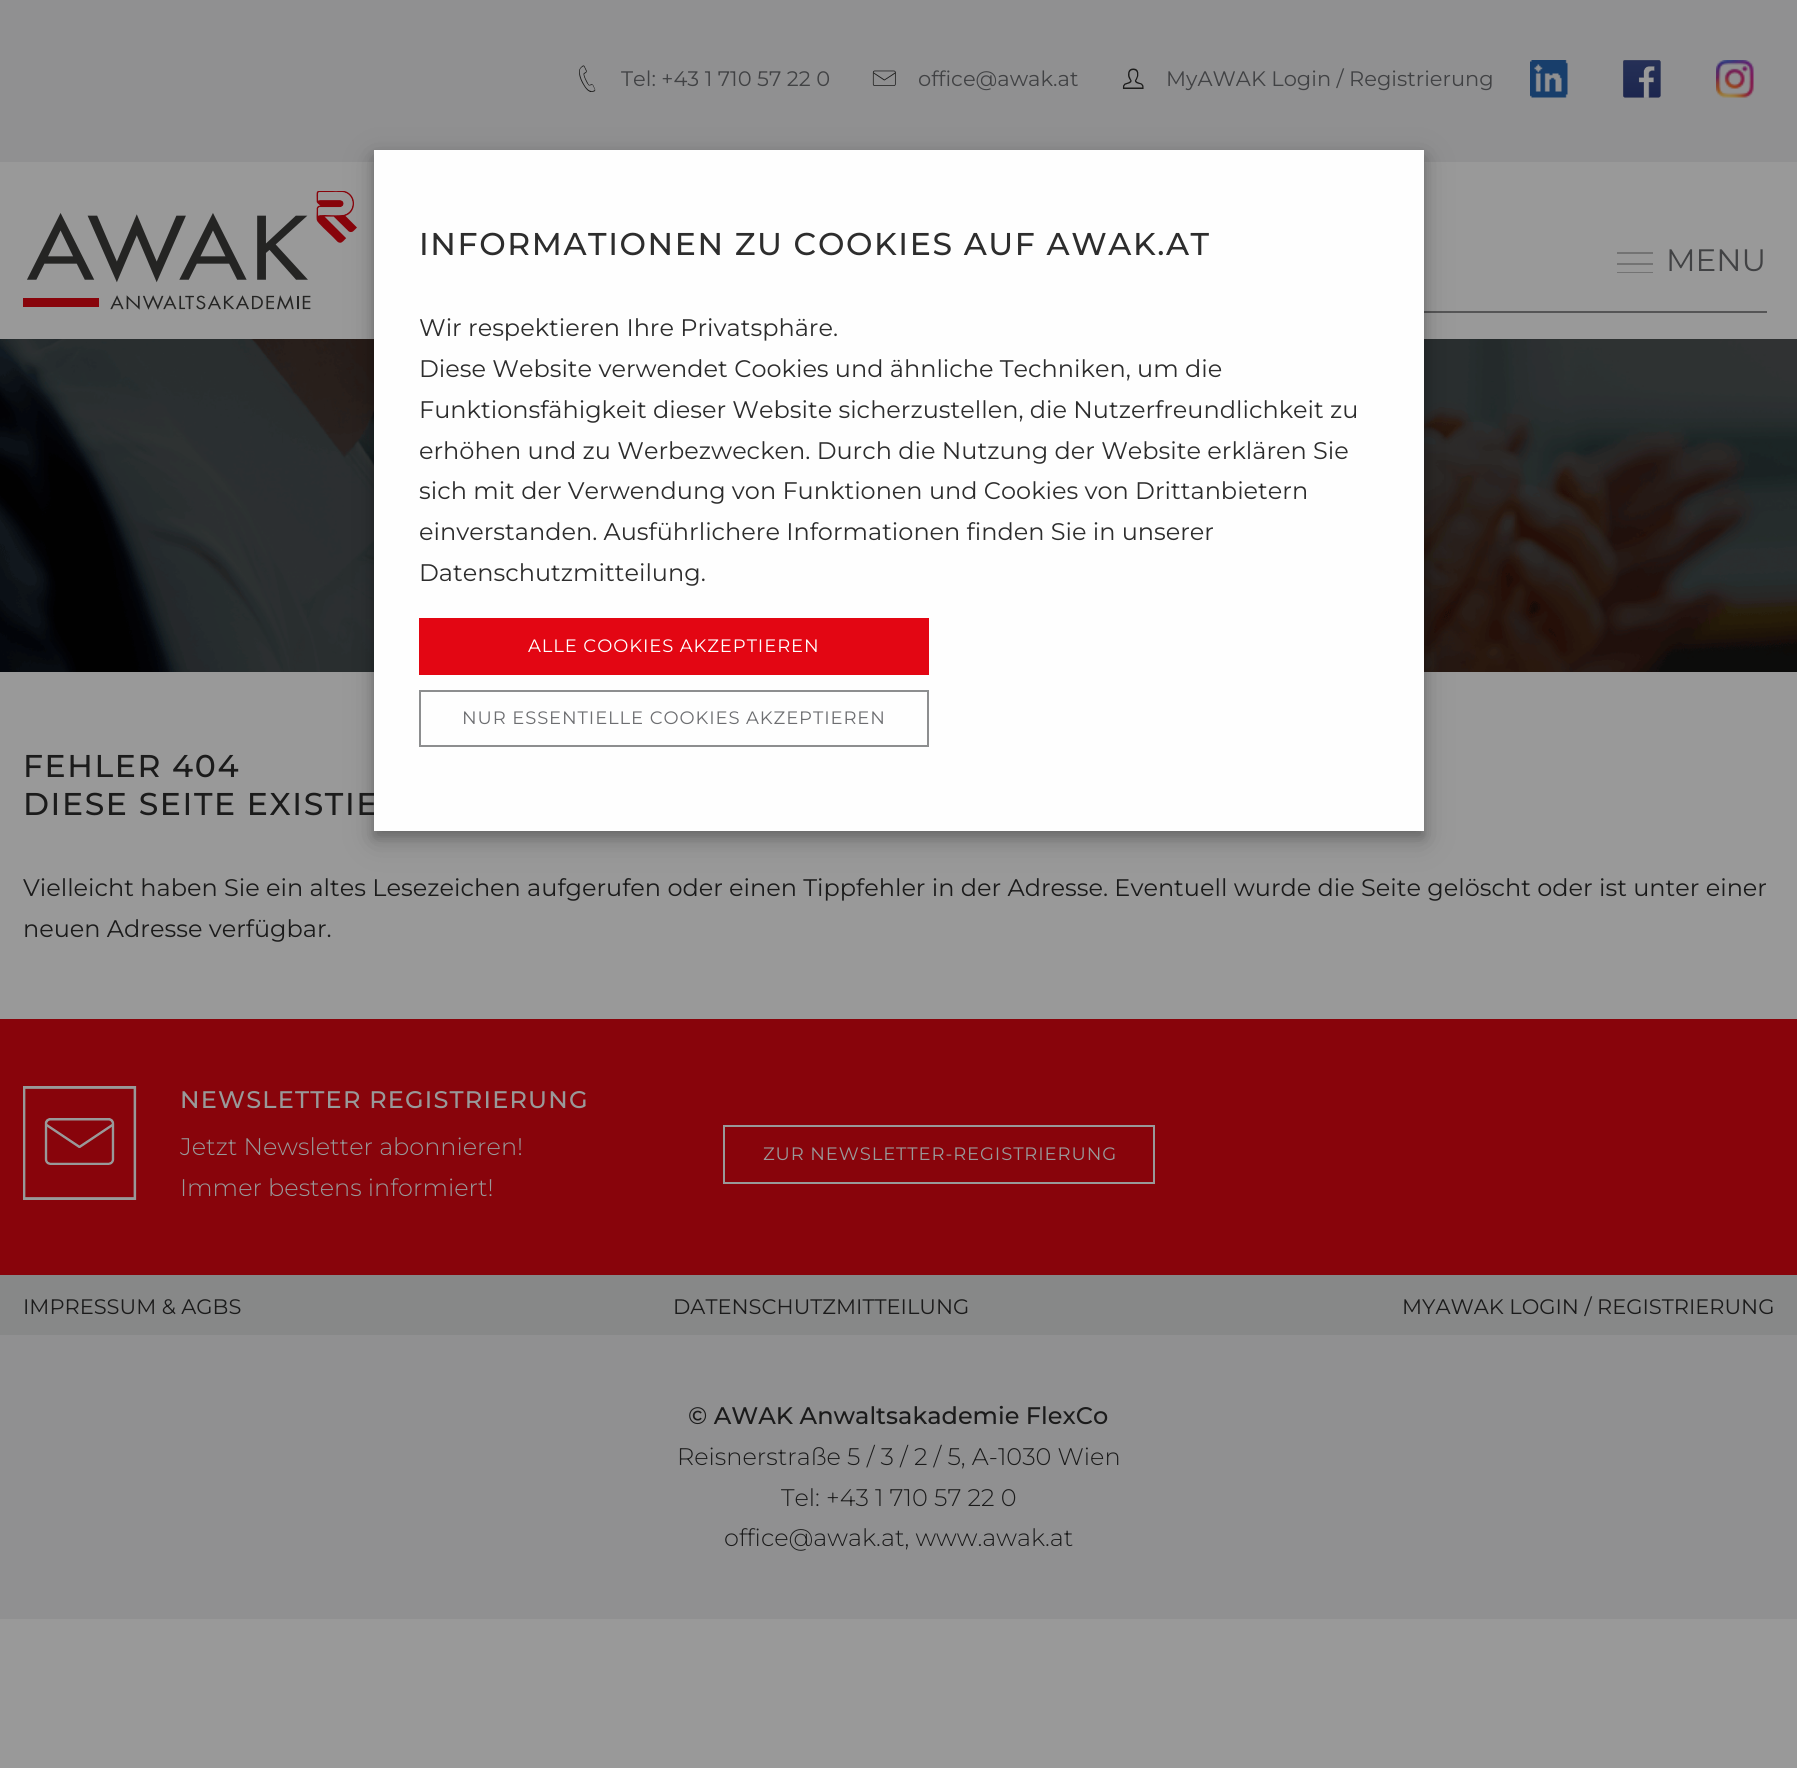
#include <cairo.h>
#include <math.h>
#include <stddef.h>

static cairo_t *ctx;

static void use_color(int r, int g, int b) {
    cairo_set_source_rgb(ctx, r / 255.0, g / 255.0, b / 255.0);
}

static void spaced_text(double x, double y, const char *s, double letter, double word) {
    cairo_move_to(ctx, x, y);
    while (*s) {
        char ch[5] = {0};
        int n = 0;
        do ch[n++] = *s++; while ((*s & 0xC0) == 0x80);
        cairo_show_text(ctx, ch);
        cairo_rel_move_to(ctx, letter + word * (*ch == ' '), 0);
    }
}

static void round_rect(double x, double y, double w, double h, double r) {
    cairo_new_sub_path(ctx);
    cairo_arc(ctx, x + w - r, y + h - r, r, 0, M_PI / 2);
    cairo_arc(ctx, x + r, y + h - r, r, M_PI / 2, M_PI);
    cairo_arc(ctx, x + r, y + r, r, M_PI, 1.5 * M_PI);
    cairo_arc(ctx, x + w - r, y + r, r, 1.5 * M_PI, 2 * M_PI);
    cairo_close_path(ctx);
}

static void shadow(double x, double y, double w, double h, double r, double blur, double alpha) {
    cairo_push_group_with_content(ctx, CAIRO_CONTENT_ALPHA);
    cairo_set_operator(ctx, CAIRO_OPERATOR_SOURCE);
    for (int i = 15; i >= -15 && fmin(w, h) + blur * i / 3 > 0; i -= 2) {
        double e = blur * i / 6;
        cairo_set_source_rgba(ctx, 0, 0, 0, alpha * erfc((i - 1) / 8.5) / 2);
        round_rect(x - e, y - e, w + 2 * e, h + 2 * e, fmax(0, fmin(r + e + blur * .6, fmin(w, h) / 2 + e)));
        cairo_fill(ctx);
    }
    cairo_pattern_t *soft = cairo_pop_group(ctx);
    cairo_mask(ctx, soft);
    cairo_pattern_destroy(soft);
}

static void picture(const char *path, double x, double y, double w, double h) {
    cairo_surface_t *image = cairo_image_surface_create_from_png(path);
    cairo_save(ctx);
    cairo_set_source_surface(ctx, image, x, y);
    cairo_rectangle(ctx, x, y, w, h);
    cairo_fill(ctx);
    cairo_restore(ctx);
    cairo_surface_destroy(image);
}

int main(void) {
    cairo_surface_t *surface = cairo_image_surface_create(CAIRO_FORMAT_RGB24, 1797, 1768);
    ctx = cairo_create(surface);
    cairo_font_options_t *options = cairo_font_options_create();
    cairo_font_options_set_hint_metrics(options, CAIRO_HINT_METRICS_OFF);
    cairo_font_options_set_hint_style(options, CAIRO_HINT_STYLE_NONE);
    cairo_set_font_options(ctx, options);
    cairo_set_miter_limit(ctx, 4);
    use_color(153, 153, 153);
    cairo_paint(ctx);
    use_color(144, 144, 145);
    cairo_rectangle(ctx, 0, 0, 1797, 162);
    cairo_fill(ctx);
    picture("img1.png", 579, 65, 17, 27);
    cairo_select_font_face(ctx, "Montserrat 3 Thin", CAIRO_FONT_SLANT_NORMAL, CAIRO_FONT_WEIGHT_NORMAL);
    cairo_set_font_size(ctx, 21);
    use_color(65, 66, 68);
    cairo_move_to(ctx, 621, 86);
    cairo_show_text(ctx, "Tel: +43 1 710 57 22 0");
    picture("img2.png", 872, 70, 24, 16);
    cairo_move_to(ctx, 918, 86);
    cairo_show_text(ctx, "office@awak.at");
    picture("img3.png", 1122, 68, 22, 21);
    cairo_move_to(ctx, 1166, 86);
    cairo_show_text(ctx, "MyAWAK Login / Registrierung");
    picture("img4.png", 1530, 60, 38, 38);
    picture("img5.png", 1623, 60, 38, 38);
    picture("img6.png", 1716, 60, 38, 38);
    picture("img7.png", 23, 191, 334, 119);
    use_color(85, 85, 86);
    cairo_rectangle(ctx, 1424, 311, 343, 2);
    cairo_fill(ctx);
    use_color(115, 115, 115);
    cairo_rectangle(ctx, 1617, 252, 36, 2);
    cairo_fill(ctx);
    cairo_rectangle(ctx, 1617, 263, 36, 2);
    cairo_fill(ctx);
    cairo_rectangle(ctx, 1617, 272, 36, 1);
    cairo_fill(ctx);
    cairo_set_font_size(ctx, 31);
    use_color(65, 66, 68);
    cairo_move_to(ctx, 1666, 271);
    cairo_show_text(ctx, "MENU");
    picture("img8.png", 0, 339, 1797, 333);
    use_color(0, 0, 0);
    shadow(374, 159, 1050, 681, 0, 15, 0.19);
    shadow(374, 156, 1050, 681, 0, 6, 0.2);
    cairo_select_font_face(ctx, "Montserrat Thin", CAIRO_FONT_SLANT_NORMAL, CAIRO_FONT_WEIGHT_NORMAL);
    cairo_set_font_size(ctx, 31.5);
    use_color(27, 27, 27);
    spaced_text(23, 815, "DIESE SEITE EXISTIE", 1.6, 0);
    use_color(254, 254, 254);
    cairo_rectangle(ctx, 374, 150, 1050, 681);
    cairo_fill(ctx);
    use_color(45, 45, 45);
    spaced_text(419, 255, "INFORMATIONEN ZU COOKIES AUF AWAK.AT", 1.6, 0);
    cairo_select_font_face(ctx, "Montserrat 3 Thin", CAIRO_FONT_SLANT_NORMAL, CAIRO_FONT_WEIGHT_NORMAL);
    cairo_set_font_size(ctx, 24);
    cairo_move_to(ctx, 419, 336);
    cairo_show_text(ctx, "Wir respektieren Ihre Privatsphäre.");
    cairo_move_to(ctx, 419, 377);
    cairo_show_text(ctx, "Diese Website verwendet Cookies und ähnliche Techniken, um die");
    cairo_move_to(ctx, 419, 418);
    cairo_show_text(ctx, "Funktionsfähigkeit dieser Website sicherzustellen, die Nutzerfreundlichkeit zu");
    cairo_move_to(ctx, 419, 459);
    cairo_show_text(ctx, "erhöhen und zu Werbezwecken. Durch die Nutzung der Website erklären Sie");
    cairo_move_to(ctx, 419, 499);
    cairo_show_text(ctx, "sich mit der Verwendung von Funktionen und Cookies von Drittanbietern");
    cairo_move_to(ctx, 419, 540);
    cairo_show_text(ctx, "einverstanden. Ausführlichere Informationen finden Sie in unserer");
    cairo_move_to(ctx, 419, 581);
    cairo_show_text(ctx, "Datenschutzmitteilung.");
    use_color(227, 6, 19);
    cairo_rectangle(ctx, 419, 618, 510, 57);
    cairo_fill(ctx);
    cairo_set_font_size(ctx, 18);
    use_color(255, 255, 255);
    spaced_text(528, 652, "ALLE COOKIES AKZEPTIEREN", 0.9, 0);
    cairo_rectangle(ctx, 420, 691, 508, 55);
    use_color(141, 142, 143);
    cairo_stroke(ctx);
    use_color(109, 110, 113);
    spaced_text(462, 724, "NUR ESSENTIELLE COOKIES AKZEPTIEREN", 0.9, 0);
    cairo_select_font_face(ctx, "Montserrat Thin", CAIRO_FONT_SLANT_NORMAL, CAIRO_FONT_WEIGHT_NORMAL);
    cairo_set_font_size(ctx, 31.5);
    use_color(27, 27, 27);
    spaced_text(23, 777, "FEHLER 404", 1.6, 0);
    cairo_select_font_face(ctx, "Montserrat 3 Thin", CAIRO_FONT_SLANT_NORMAL, CAIRO_FONT_WEIGHT_NORMAL);
    cairo_set_font_size(ctx, 24);
    cairo_move_to(ctx, 23, 896);
    cairo_show_text(ctx, "Vielleicht haben Sie ein altes Lesezeichen aufgerufen oder einen Tippfehler in der Adresse. Eventuell wurde die Seite gelöscht oder ist unter einer");
    cairo_move_to(ctx, 23, 937);
    cairo_show_text(ctx, "neuen Adresse verfügbar.");
    use_color(136, 4, 11);
    cairo_rectangle(ctx, 0, 1019, 1797, 256);
    cairo_fill(ctx);
    picture("img9.png", 23, 1086, 114, 114);
    cairo_select_font_face(ctx, "Montserrat Thin", CAIRO_FONT_SLANT_NORMAL, CAIRO_FONT_WEIGHT_NORMAL);
    use_color(153, 153, 153);
    spaced_text(180, 1108, "NEWSLETTER REGISTRIERUNG", 1.2, 0);
    cairo_select_font_face(ctx, "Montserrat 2 Thin", CAIRO_FONT_SLANT_NORMAL, CAIRO_FONT_WEIGHT_NORMAL);
    cairo_move_to(ctx, 180, 1155);
    cairo_show_text(ctx, "Jetzt Newsletter abonnieren!");
    cairo_move_to(ctx, 180, 1196);
    cairo_show_text(ctx, "Immer bestens informiert!");
    cairo_rectangle(ctx, 724, 1126, 430, 57);
    cairo_stroke(ctx);
    cairo_select_font_face(ctx, "Montserrat 3 Thin", CAIRO_FONT_SLANT_NORMAL, CAIRO_FONT_WEIGHT_NORMAL);
    cairo_set_font_size(ctx, 18);
    spaced_text(763, 1160, "ZUR NEWSLETTER-REGISTRIERUNG", 0.9, 0);
    use_color(135, 136, 136);
    cairo_rectangle(ctx, 0, 1275, 1797, 60);
    cairo_fill(ctx);
    cairo_set_font_size(ctx, 21);
    use_color(27, 27, 27);
    cairo_move_to(ctx, 23, 1314);
    cairo_show_text(ctx, "IMPRESSUM & AGBS");
    cairo_move_to(ctx, 673, 1314);
    cairo_show_text(ctx, "DATENSCHUTZMITTEILUNG");
    cairo_move_to(ctx, 1402, 1314);
    cairo_show_text(ctx, "MYAWAK LOGIN / REGISTRIERUNG");
    use_color(144, 144, 145);
    cairo_rectangle(ctx, 0, 1335, 1797, 284);
    cairo_fill(ctx);
    cairo_select_font_face(ctx, "Montserrat Thin", CAIRO_FONT_SLANT_NORMAL, CAIRO_FONT_WEIGHT_NORMAL);
    cairo_set_font_size(ctx, 24);
    use_color(27, 27, 27);
    cairo_move_to(ctx, 688, 1424);
    cairo_show_text(ctx, "© AWAK Anwaltsakademie FlexCo");
    cairo_select_font_face(ctx, "Montserrat 2 Thin", CAIRO_FONT_SLANT_NORMAL, CAIRO_FONT_WEIGHT_NORMAL);
    cairo_move_to(ctx, 677, 1465);
    cairo_show_text(ctx, "Reisnerstraße 5 / 3 / 2 / 5, A-1030 Wien");
    cairo_move_to(ctx, 781, 1506);
    cairo_show_text(ctx, "Tel: +43 1 710 57 22 0");
    cairo_move_to(ctx, 724, 1546);
    cairo_show_text(ctx, "office@awak.at, www.awak.at");
    cairo_surface_write_to_png(surface, "result.png");
    cairo_font_options_destroy(options);
    cairo_destroy(ctx);
    cairo_surface_destroy(surface);
    return 0;
}
